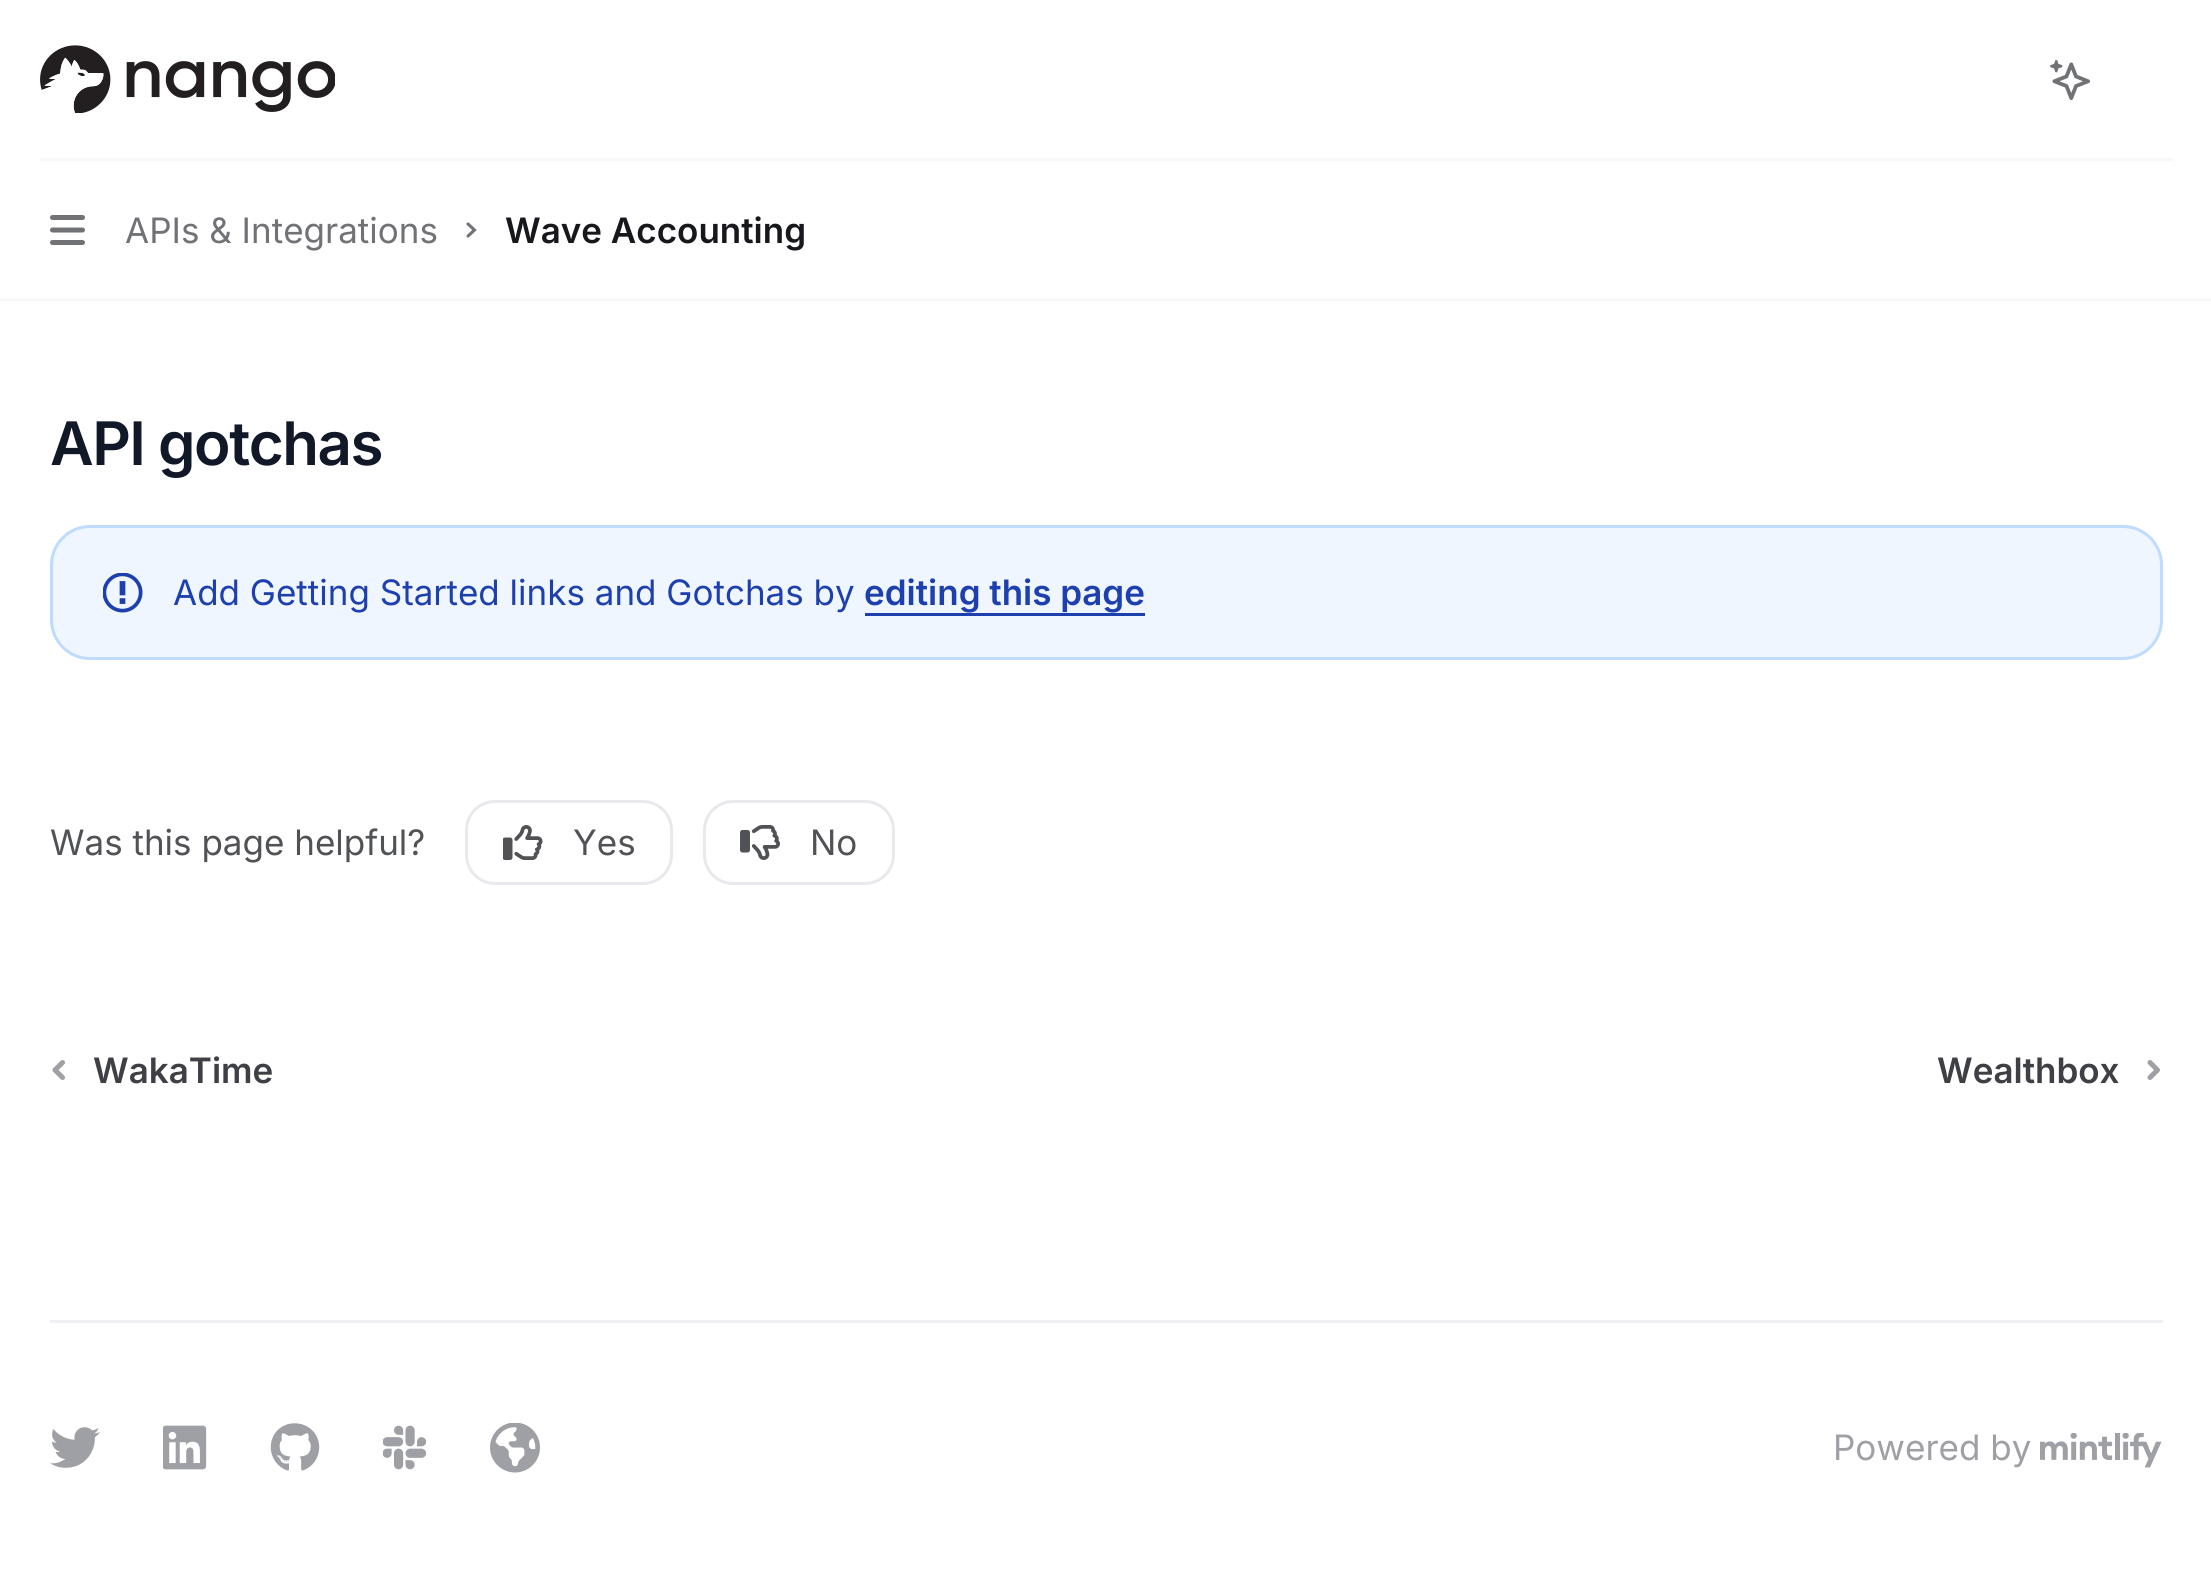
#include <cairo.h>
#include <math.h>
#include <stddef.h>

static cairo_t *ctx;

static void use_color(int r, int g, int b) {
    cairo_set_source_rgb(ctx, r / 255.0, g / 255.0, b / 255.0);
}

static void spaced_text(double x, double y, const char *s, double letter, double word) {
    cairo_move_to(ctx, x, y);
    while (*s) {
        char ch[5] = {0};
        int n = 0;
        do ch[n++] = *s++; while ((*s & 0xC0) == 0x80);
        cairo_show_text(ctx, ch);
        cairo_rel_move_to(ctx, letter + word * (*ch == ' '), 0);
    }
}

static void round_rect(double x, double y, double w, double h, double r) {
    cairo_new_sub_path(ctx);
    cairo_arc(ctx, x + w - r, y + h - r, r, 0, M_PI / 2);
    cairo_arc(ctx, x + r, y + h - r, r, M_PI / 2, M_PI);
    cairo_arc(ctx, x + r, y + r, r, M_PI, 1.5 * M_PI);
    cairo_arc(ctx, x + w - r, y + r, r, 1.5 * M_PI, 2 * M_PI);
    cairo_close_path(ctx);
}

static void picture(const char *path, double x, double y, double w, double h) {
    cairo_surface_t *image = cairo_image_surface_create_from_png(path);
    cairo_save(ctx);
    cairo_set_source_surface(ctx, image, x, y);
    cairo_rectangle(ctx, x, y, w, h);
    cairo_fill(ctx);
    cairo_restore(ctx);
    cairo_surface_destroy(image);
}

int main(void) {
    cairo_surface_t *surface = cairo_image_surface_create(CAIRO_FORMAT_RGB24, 2211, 1594);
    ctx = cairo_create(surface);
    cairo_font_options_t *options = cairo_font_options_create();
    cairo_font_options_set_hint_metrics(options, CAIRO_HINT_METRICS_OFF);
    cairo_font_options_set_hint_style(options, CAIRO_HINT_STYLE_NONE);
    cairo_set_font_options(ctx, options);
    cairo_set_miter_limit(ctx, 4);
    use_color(255, 255, 255);
    cairo_paint(ctx);
    use_color(248, 248, 248);
    cairo_rectangle(ctx, 40, 158, 2133, 3);
    cairo_fill(ctx);
    picture("img1.png", 40, 45, 295, 68);
    picture("img2.png", 2050, 60, 40, 40);
    picture("img3.png", 50, 215, 35, 30);
    cairo_select_font_face(ctx, "Inter", CAIRO_FONT_SLANT_NORMAL, CAIRO_FONT_WEIGHT_NORMAL);
    cairo_set_font_size(ctx, 35);
    use_color(112, 114, 118);
    cairo_move_to(ctx, 125, 243);
    cairo_show_text(ctx, "APIs & Integrations");
    cairo_new_path(ctx);
    cairo_move_to(ctx, 468, 224);
    cairo_line_to(ctx, 474.5, 230);
    cairo_line_to(ctx, 468, 236);
    cairo_set_line_width(ctx, 3.1);
    cairo_set_line_cap(ctx, CAIRO_LINE_CAP_ROUND);
    cairo_stroke(ctx);
    cairo_select_font_face(ctx, "Inter SemiBold", CAIRO_FONT_SLANT_NORMAL, CAIRO_FONT_WEIGHT_NORMAL);
    use_color(23, 24, 29);
    cairo_move_to(ctx, 505, 243);
    cairo_show_text(ctx, "Wave Accounting");
    use_color(248, 248, 248);
    cairo_rectangle(ctx, 0, 298, 2211, 3);
    cairo_fill(ctx);
    cairo_set_font_size(ctx, 60);
    use_color(17, 24, 39);
    spaced_text(50, 465, "API gotchas", -1.5, 0);
    use_color(239, 246, 255);
    round_rect(51.5, 526.5, 2110, 132, 38.5);
    cairo_fill_preserve(ctx);
    use_color(191, 219, 254);
    cairo_set_line_width(ctx, 3);
    cairo_set_line_cap(ctx, CAIRO_LINE_CAP_BUTT);
    cairo_stroke(ctx);
    picture("img4.png", 103, 573, 40, 40);
    cairo_select_font_face(ctx, "Inter", CAIRO_FONT_SLANT_NORMAL, CAIRO_FONT_WEIGHT_NORMAL);
    cairo_set_font_size(ctx, 35);
    use_color(30, 64, 175);
    cairo_move_to(ctx, 173, 605);
    cairo_show_text(ctx, "Add Getting Started links and Gotchas by");
    cairo_select_font_face(ctx, "Inter SemiBold", CAIRO_FONT_SLANT_NORMAL, CAIRO_FONT_WEIGHT_NORMAL);
    cairo_move_to(ctx, 864, 605);
    cairo_show_text(ctx, "editing this page");
    cairo_rectangle(ctx, 865, 613, 280, 3);
    cairo_fill(ctx);
    cairo_select_font_face(ctx, "Inter", CAIRO_FONT_SLANT_NORMAL, CAIRO_FONT_WEIGHT_NORMAL);
    use_color(80, 82, 86);
    cairo_move_to(ctx, 50, 855);
    cairo_show_text(ctx, "Was this page helpful?");
    round_rect(466.5, 801.5, 205, 82, 28.5);
    use_color(233, 233, 237);
    cairo_stroke(ctx);
    picture("img5.png", 503, 825, 40, 35);
    use_color(80, 82, 86);
    cairo_move_to(ctx, 573, 855);
    cairo_show_text(ctx, "Yes");
    round_rect(704.5, 801.5, 189, 82, 28.5);
    use_color(233, 233, 237);
    cairo_stroke(ctx);
    picture("img6.png", 740, 825, 40, 35);
    use_color(80, 82, 86);
    cairo_move_to(ctx, 810, 855);
    cairo_show_text(ctx, "No");
    cairo_new_path(ctx);
    cairo_move_to(ctx, 62.5, 1062.5);
    cairo_line_to(ctx, 55, 1070);
    cairo_line_to(ctx, 62.5, 1077.5);
    use_color(159, 160, 165);
    cairo_set_line_width(ctx, 5);
    cairo_set_line_cap(ctx, CAIRO_LINE_CAP_ROUND);
    cairo_set_line_join(ctx, CAIRO_LINE_JOIN_ROUND);
    cairo_stroke(ctx);
    cairo_select_font_face(ctx, "Inter SemiBold", CAIRO_FONT_SLANT_NORMAL, CAIRO_FONT_WEIGHT_NORMAL);
    use_color(63, 64, 69);
    cairo_move_to(ctx, 93, 1083);
    cairo_show_text(ctx, "WakaTime");
    cairo_move_to(ctx, 1937, 1083);
    cairo_show_text(ctx, "Wealthbox");
    cairo_new_path(ctx);
    cairo_move_to(ctx, 2150, 1077.5);
    cairo_line_to(ctx, 2157.5, 1070);
    cairo_line_to(ctx, 2150, 1062.5);
    use_color(159, 160, 165);
    cairo_stroke(ctx);
    use_color(238, 240, 244);
    cairo_rectangle(ctx, 50, 1320, 2113, 3);
    cairo_fill(ctx);
    picture("img7.png", 50, 1427, 50, 41);
    picture("img8.png", 163, 1425, 44, 45);
    picture("img9.png", 270, 1423, 50, 48);
    picture("img10.png", 383, 1425, 44, 45);
    picture("img11.png", 490, 1423, 50, 50);
    cairo_select_font_face(ctx, "Inter", CAIRO_FONT_SLANT_NORMAL, CAIRO_FONT_WEIGHT_NORMAL);
    use_color(159, 160, 165);
    cairo_move_to(ctx, 1833, 1460);
    cairo_show_text(ctx, "Powered by");
    picture("img12.png", 2040, 1433, 122, 35);
    cairo_surface_write_to_png(surface, "result.png");
    cairo_font_options_destroy(options);
    cairo_destroy(ctx);
    cairo_surface_destroy(surface);
    return 0;
}
